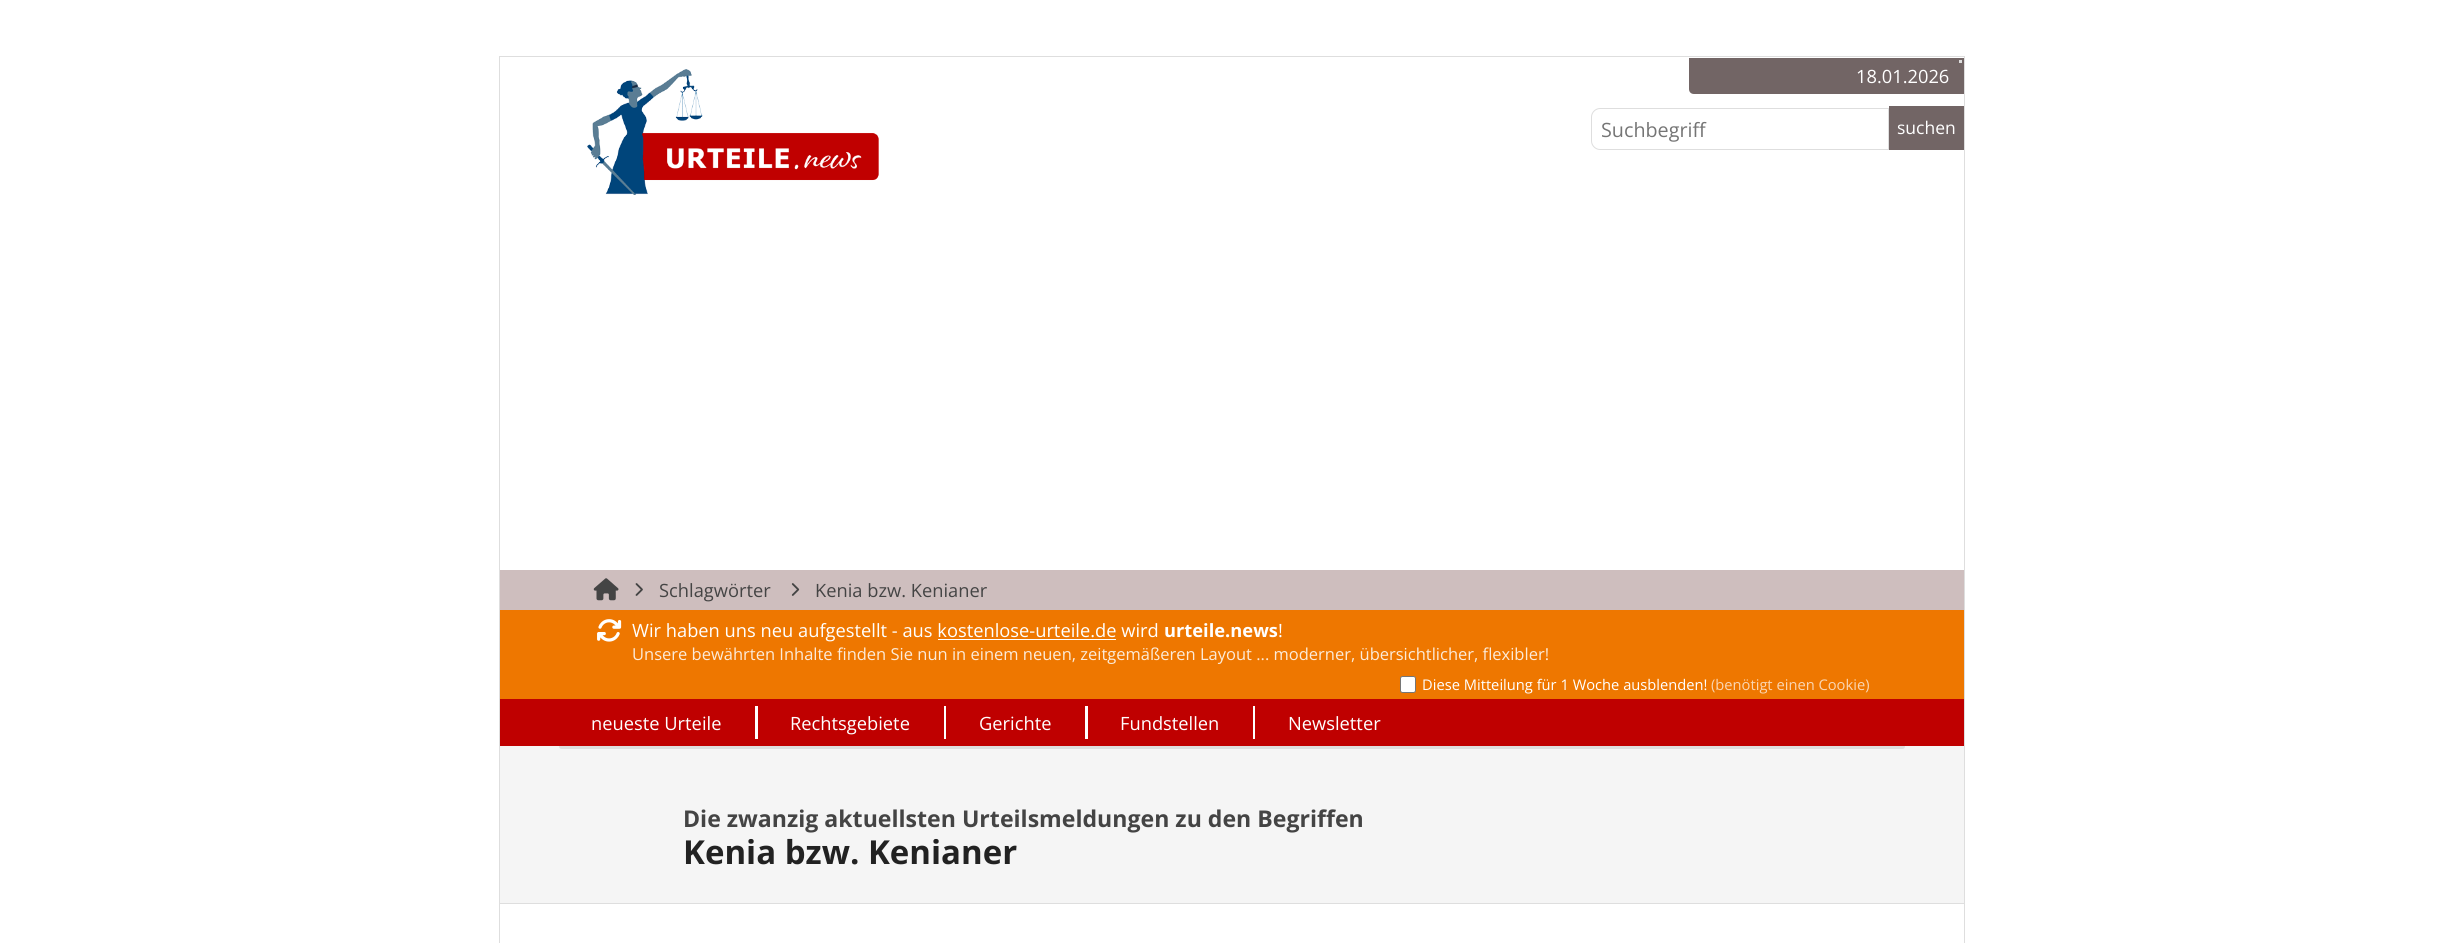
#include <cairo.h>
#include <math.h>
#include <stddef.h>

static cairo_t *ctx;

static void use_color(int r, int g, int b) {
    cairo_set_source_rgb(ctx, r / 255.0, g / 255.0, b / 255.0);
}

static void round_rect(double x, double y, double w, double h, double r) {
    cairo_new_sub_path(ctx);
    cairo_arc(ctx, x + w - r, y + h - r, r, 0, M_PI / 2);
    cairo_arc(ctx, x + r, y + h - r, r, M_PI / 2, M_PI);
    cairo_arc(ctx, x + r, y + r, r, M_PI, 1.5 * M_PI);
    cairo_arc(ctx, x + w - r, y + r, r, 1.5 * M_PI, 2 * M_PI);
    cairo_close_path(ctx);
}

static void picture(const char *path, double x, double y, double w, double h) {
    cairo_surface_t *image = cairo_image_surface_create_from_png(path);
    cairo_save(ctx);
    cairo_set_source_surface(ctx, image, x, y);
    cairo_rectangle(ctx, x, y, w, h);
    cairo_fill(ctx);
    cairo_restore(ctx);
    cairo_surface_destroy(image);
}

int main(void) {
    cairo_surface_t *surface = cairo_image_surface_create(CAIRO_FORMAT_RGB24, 2463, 943);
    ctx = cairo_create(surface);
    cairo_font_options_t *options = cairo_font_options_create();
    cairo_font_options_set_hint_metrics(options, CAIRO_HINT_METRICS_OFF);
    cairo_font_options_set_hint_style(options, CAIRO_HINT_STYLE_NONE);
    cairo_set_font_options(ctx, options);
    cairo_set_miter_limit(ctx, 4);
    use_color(255, 255, 255);
    cairo_paint(ctx);
    cairo_rectangle(ctx, 499.5, 56.5, 1465, 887);
    use_color(222, 222, 222);
    cairo_set_line_width(ctx, 1);
    cairo_stroke(ctx);
    use_color(114, 101, 101);
    cairo_new_path(ctx);
    cairo_move_to(ctx, 1689, 58);
    cairo_line_to(ctx, 1964, 58);
    cairo_line_to(ctx, 1964, 94);
    cairo_line_to(ctx, 1694, 94);
    cairo_curve_to(ctx, 1691, 94, 1689, 92, 1689, 89);
    cairo_close_path(ctx);
    cairo_fill(ctx);
    use_color(222, 222, 222);
    cairo_rectangle(ctx, 1959, 60, 3, 3);
    cairo_fill(ctx);
    cairo_select_font_face(ctx, "Open Sans", CAIRO_FONT_SLANT_NORMAL, CAIRO_FONT_WEIGHT_NORMAL);
    cairo_set_font_size(ctx, 18.3);
    use_color(255, 255, 255);
    cairo_move_to(ctx, 1856, 83);
    cairo_show_text(ctx, "18.01.2026");
    picture("img1.png", 587, 69, 292, 126);
    cairo_new_path(ctx);
    cairo_move_to(ctx, 1600, 108.5);
    cairo_line_to(ctx, 1888.5, 108.5);
    cairo_line_to(ctx, 1888.5, 149.5);
    cairo_line_to(ctx, 1600, 149.5);
    cairo_curve_to(ctx, 1595.5, 149.5, 1591.5, 145.5, 1591.5, 141);
    cairo_line_to(ctx, 1591.5, 117);
    cairo_curve_to(ctx, 1591.5, 112.5, 1595.5, 108.5, 1600, 108.5);
    cairo_close_path(ctx);
    use_color(222, 222, 222);
    cairo_stroke(ctx);
    cairo_set_font_size(ctx, 19.75);
    use_color(117, 117, 117);
    cairo_move_to(ctx, 1601, 137);
    cairo_show_text(ctx, "Suchbegriff");
    use_color(114, 101, 101);
    cairo_rectangle(ctx, 1889, 106, 75, 44);
    cairo_fill(ctx);
    cairo_set_font_size(ctx, 17.5);
    use_color(255, 255, 255);
    cairo_move_to(ctx, 1897, 134);
    cairo_show_text(ctx, "suchen");
    use_color(206, 190, 190);
    cairo_rectangle(ctx, 500, 570, 1464, 40);
    cairo_fill(ctx);
    picture("img2.png", 593, 578, 26, 23);
    picture("img3.png", 635, 583, 8, 13);
    cairo_set_font_size(ctx, 18.3);
    use_color(68, 68, 68);
    cairo_move_to(ctx, 659, 597);
    cairo_show_text(ctx, "Schlagwörter");
    picture("img4.png", 791, 583, 9, 13);
    cairo_move_to(ctx, 815, 597);
    cairo_show_text(ctx, "Kenia bzw. Kenianer");
    use_color(238, 119, 0);
    cairo_rectangle(ctx, 500, 610, 1464, 89);
    cairo_fill(ctx);
    picture("img5.png", 597, 619, 25, 23);
    use_color(255, 255, 255);
    cairo_move_to(ctx, 632, 637);
    cairo_show_text(ctx, "Wir haben uns neu aufgestellt - aus kostenlose-urteile.de wird");
    cairo_select_font_face(ctx, "Open Sans", CAIRO_FONT_SLANT_NORMAL, CAIRO_FONT_WEIGHT_BOLD);
    cairo_move_to(ctx, 1164, 637);
    cairo_show_text(ctx, "urteile.news");
    cairo_select_font_face(ctx, "Open Sans", CAIRO_FONT_SLANT_NORMAL, CAIRO_FONT_WEIGHT_NORMAL);
    cairo_move_to(ctx, 1278, 637);
    cairo_show_text(ctx, "!");
    cairo_rectangle(ctx, 938, 639, 178, 1);
    cairo_fill(ctx);
    cairo_set_font_size(ctx, 16.5);
    use_color(252, 235, 217);
    cairo_move_to(ctx, 632, 660);
    cairo_show_text(ctx, "Unsere bewährten Inhalte finden Sie nun in einem neuen, zeitgemäßeren Layout ... moderner, übersichtlicher, flexibler!");
    use_color(255, 255, 255);
    round_rect(1400.5, 676.5, 15, 16, 2);
    cairo_fill_preserve(ctx);
    use_color(118, 118, 118);
    cairo_stroke(ctx);
    cairo_set_font_size(ctx, 14.7);
    use_color(255, 255, 255);
    cairo_move_to(ctx, 1422, 690);
    cairo_show_text(ctx, "Diese Mitteilung für 1 Woche ausblenden!");
    use_color(250, 214, 179);
    cairo_move_to(ctx, 1711, 690);
    cairo_show_text(ctx, "(benötigt einen Cookie)");
    use_color(191, 0, 0);
    cairo_rectangle(ctx, 500, 699, 1464, 47);
    cairo_fill(ctx);
    use_color(255, 255, 255);
    cairo_rectangle(ctx, 755, 706, 3, 33);
    cairo_fill(ctx);
    cairo_set_font_size(ctx, 18.3);
    cairo_move_to(ctx, 591, 730);
    cairo_show_text(ctx, "neueste Urteile");
    cairo_rectangle(ctx, 944, 706, 2, 33);
    cairo_fill(ctx);
    cairo_move_to(ctx, 790, 730);
    cairo_show_text(ctx, "Rechtsgebiete");
    cairo_rectangle(ctx, 1085, 706, 3, 33);
    cairo_fill(ctx);
    cairo_move_to(ctx, 979, 730);
    cairo_show_text(ctx, "Gerichte");
    cairo_rectangle(ctx, 1253, 706, 2, 33);
    cairo_fill(ctx);
    cairo_move_to(ctx, 1120, 730);
    cairo_show_text(ctx, "Fundstellen");
    cairo_move_to(ctx, 1288, 730);
    cairo_show_text(ctx, "Newsletter");
    use_color(245, 245, 245);
    cairo_rectangle(ctx, 500, 746, 1464, 157);
    cairo_fill(ctx);
    use_color(222, 222, 222);
    cairo_new_path(ctx);
    cairo_move_to(ctx, 559, 746);
    cairo_line_to(ctx, 1905, 746);
    cairo_line_to(ctx, 1905, 746.5);
    cairo_curve_to(ctx, 1905, 748, 1904, 749, 1902.5, 749);
    cairo_line_to(ctx, 561.5, 749);
    cairo_curve_to(ctx, 560, 749, 559, 748, 559, 746.5);
    cairo_close_path(ctx);
    cairo_fill(ctx);
    cairo_rectangle(ctx, 500, 903, 1464, 1);
    cairo_fill(ctx);
    cairo_select_font_face(ctx, "Open Sans", CAIRO_FONT_SLANT_NORMAL, CAIRO_FONT_WEIGHT_BOLD);
    cairo_set_font_size(ctx, 23.1);
    use_color(68, 68, 68);
    cairo_move_to(ctx, 683, 827);
    cairo_show_text(ctx, "Die zwanzig aktuellsten Urteilsmeldungen zu den Begriffen");
    cairo_set_font_size(ctx, 33);
    use_color(34, 34, 34);
    cairo_move_to(ctx, 683, 864);
    cairo_show_text(ctx, "Kenia bzw. Kenianer");
    cairo_surface_write_to_png(surface, "result.png");
    cairo_font_options_destroy(options);
    cairo_destroy(ctx);
    cairo_surface_destroy(surface);
    return 0;
}
